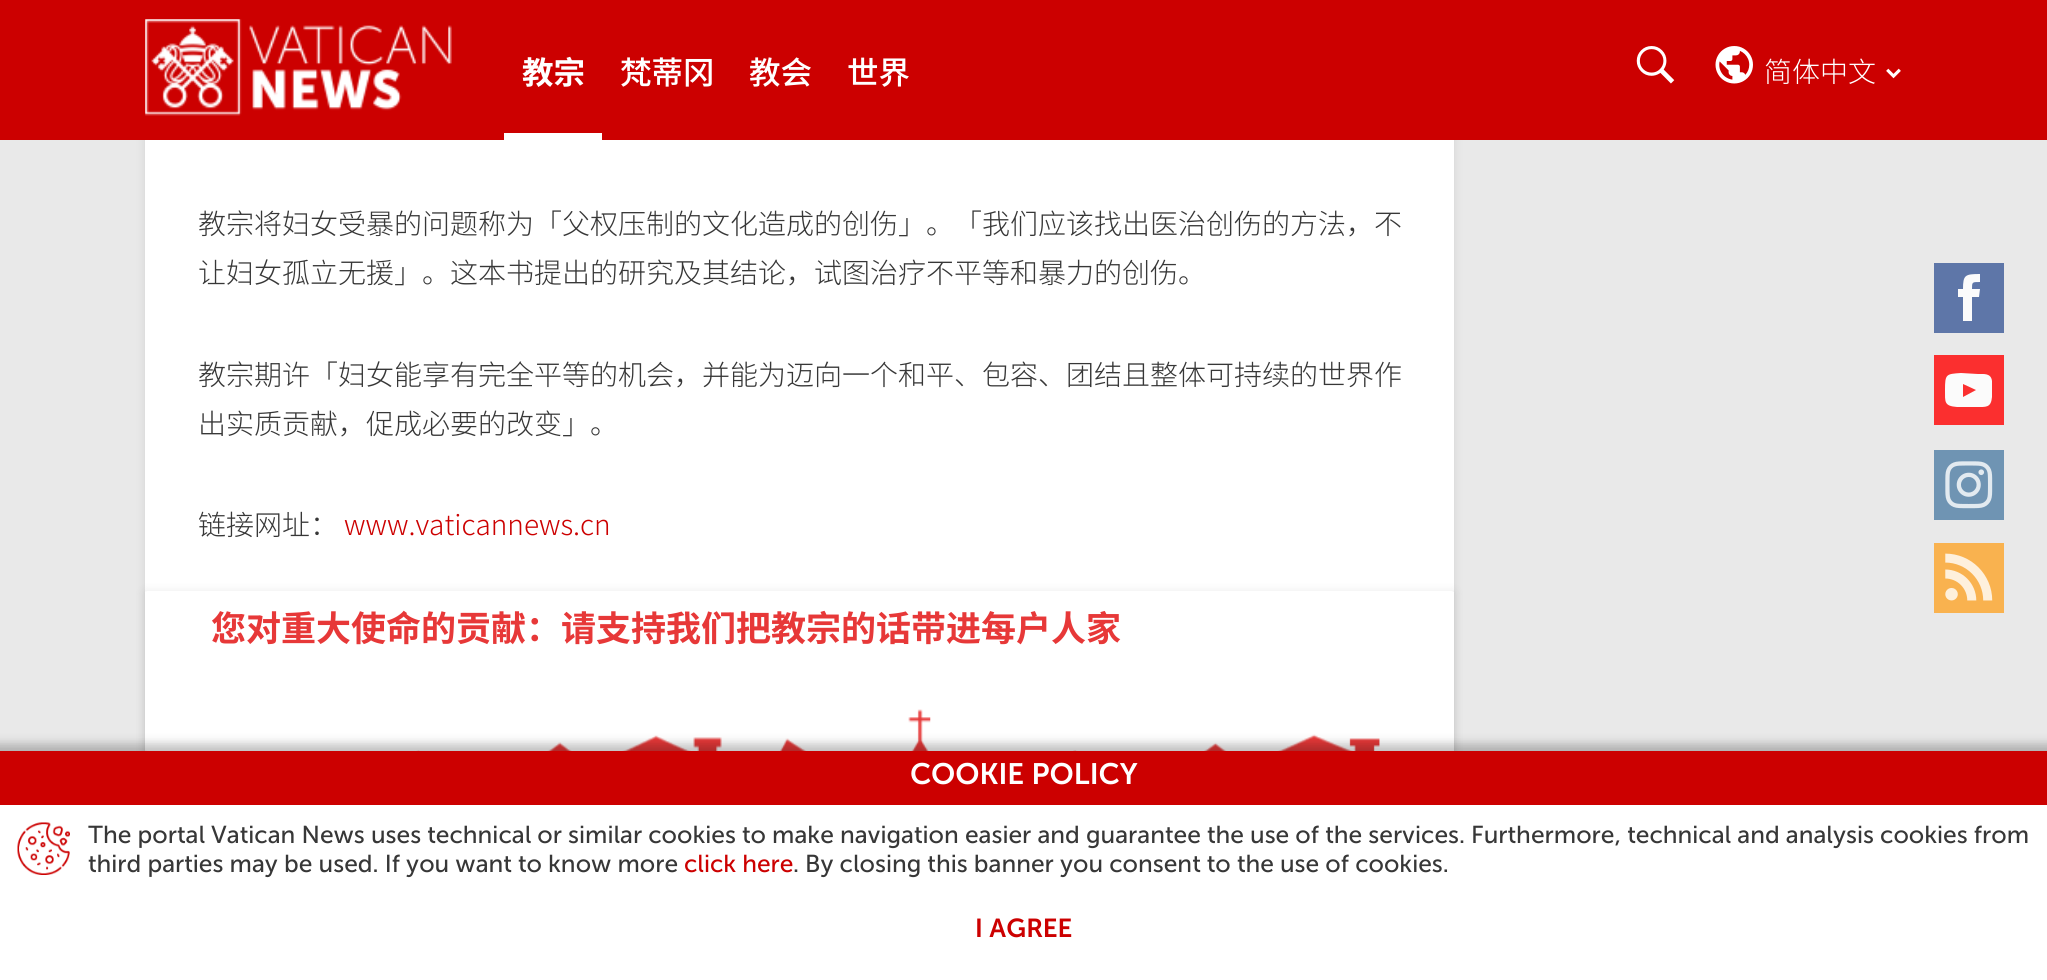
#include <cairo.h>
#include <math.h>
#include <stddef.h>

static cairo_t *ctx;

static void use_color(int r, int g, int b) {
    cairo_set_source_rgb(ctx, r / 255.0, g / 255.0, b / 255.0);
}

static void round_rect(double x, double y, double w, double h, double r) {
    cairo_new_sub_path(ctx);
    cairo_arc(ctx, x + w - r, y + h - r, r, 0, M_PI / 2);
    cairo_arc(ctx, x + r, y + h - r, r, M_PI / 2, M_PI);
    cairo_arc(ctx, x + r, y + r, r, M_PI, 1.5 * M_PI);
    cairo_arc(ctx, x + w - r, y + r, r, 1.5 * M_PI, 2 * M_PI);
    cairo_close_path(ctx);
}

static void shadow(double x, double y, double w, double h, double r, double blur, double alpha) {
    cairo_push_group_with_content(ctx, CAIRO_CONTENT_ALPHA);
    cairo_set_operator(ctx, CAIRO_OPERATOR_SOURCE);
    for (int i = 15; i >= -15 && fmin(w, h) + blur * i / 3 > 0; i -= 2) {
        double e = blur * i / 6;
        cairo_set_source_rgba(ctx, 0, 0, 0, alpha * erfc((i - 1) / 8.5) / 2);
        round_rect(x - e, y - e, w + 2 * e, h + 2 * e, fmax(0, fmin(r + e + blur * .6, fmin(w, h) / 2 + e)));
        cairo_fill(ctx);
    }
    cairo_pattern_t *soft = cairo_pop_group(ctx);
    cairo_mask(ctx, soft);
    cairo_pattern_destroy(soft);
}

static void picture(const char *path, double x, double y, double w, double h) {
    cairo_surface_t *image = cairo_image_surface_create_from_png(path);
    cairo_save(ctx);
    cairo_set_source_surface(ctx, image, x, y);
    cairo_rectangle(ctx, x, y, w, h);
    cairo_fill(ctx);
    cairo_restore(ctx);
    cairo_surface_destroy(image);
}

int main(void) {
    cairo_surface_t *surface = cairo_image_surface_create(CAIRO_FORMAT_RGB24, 2047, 980);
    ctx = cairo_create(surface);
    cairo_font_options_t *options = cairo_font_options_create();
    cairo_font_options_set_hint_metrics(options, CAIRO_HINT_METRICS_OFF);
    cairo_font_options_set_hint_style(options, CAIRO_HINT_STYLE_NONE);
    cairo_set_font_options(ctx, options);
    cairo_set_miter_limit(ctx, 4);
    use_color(233, 233, 233);
    cairo_paint(ctx);
    use_color(0, 0, 0);
    shadow(145, -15, 1309, 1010, 0, 5, 0.1);
    use_color(204, 0, 0);
    cairo_rectangle(ctx, 0, 0, 2047, 140);
    cairo_fill(ctx);
    picture("img1.png", 145, 19, 307, 97);
    cairo_select_font_face(ctx, "Noto Sans SC", CAIRO_FONT_SLANT_NORMAL, CAIRO_FONT_WEIGHT_BOLD);
    cairo_set_font_size(ctx, 31.5);
    use_color(255, 255, 255);
    cairo_move_to(ctx, 522, 84);
    cairo_show_text(ctx, "教宗");
    cairo_rectangle(ctx, 504, 133, 98, 7);
    cairo_fill(ctx);
    cairo_select_font_face(ctx, "Noto Sans SC Medium", CAIRO_FONT_SLANT_NORMAL, CAIRO_FONT_WEIGHT_NORMAL);
    cairo_move_to(ctx, 620, 84);
    cairo_show_text(ctx, "梵蒂冈");
    cairo_move_to(ctx, 749, 84);
    cairo_show_text(ctx, "教会");
    cairo_move_to(ctx, 847, 84);
    cairo_show_text(ctx, "世界");
    use_color(94, 118, 168);
    cairo_rectangle(ctx, 1934, 263, 70, 70);
    cairo_fill(ctx);
    use_color(251, 251, 251);
    cairo_new_path(ctx);
    cairo_move_to(ctx, 1972, 321);
    cairo_line_to(ctx, 1972, 297);
    cairo_line_to(ctx, 1979, 297);
    cairo_line_to(ctx, 1980, 289);
    cairo_line_to(ctx, 1972, 289);
    cairo_curve_to(ctx, 1972, 282, 1972, 282, 1980, 282);
    cairo_line_to(ctx, 1980, 274);
    cairo_curve_to(ctx, 1965, 274, 1963, 275, 1963, 289);
    cairo_line_to(ctx, 1958, 289);
    cairo_line_to(ctx, 1958, 297);
    cairo_line_to(ctx, 1963, 297);
    cairo_line_to(ctx, 1963, 321);
    cairo_close_path(ctx);
    cairo_fill(ctx);
    use_color(251, 47, 47);
    cairo_rectangle(ctx, 1934, 355, 70, 70);
    cairo_fill(ctx);
    use_color(251, 251, 251);
    cairo_new_path(ctx);
    cairo_move_to(ctx, 1992, 381);
    cairo_curve_to(ctx, 1991, 373, 1984, 374, 1978, 374);
    cairo_line_to(ctx, 1961, 373);
    cairo_curve_to(ctx, 1946, 374, 1945, 374, 1945, 390);
    cairo_curve_to(ctx, 1945, 402, 1944, 406, 1957, 407);
    cairo_line_to(ctx, 1976, 407);
    cairo_curve_to(ctx, 1986, 407, 1991, 408, 1992, 397);
    cairo_close_path(ctx);
    cairo_move_to(ctx, 1963, 397);
    cairo_line_to(ctx, 1963, 384);
    cairo_line_to(ctx, 1976, 390);
    cairo_close_path(ctx);
    cairo_fill(ctx);
    use_color(111, 148, 179);
    cairo_rectangle(ctx, 1934, 450, 70, 70);
    cairo_fill(ctx);
    picture("img2.png", 1945, 461, 48, 48);
    use_color(249, 178, 79);
    cairo_rectangle(ctx, 1934, 543, 70, 70);
    cairo_fill(ctx);
    picture("img3.png", 1945, 553, 48, 48);
    picture("img4.png", 1636, 46, 39, 38);
    picture("img5.png", 1715, 46, 38, 38);
    cairo_select_font_face(ctx, "Noto Sans SC Light", CAIRO_FONT_SLANT_NORMAL, CAIRO_FONT_WEIGHT_NORMAL);
    cairo_set_font_size(ctx, 28);
    use_color(255, 255, 255);
    cairo_move_to(ctx, 1764, 82);
    cairo_show_text(ctx, "简体中文");
    picture("img6.png", 1886, 68, 15, 11);
    cairo_rectangle(ctx, 145, 140, 1309, 611);
    cairo_fill(ctx);
    cairo_save(ctx);
    cairo_set_fill_rule(ctx, CAIRO_FILL_RULE_EVEN_ODD);
    cairo_new_path(ctx);
    cairo_move_to(ctx, 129, 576);
    cairo_line_to(ctx, 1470, 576);
    cairo_line_to(ctx, 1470, 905);
    cairo_line_to(ctx, 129, 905);
    cairo_close_path(ctx);
    cairo_move_to(ctx, 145, 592);
    cairo_line_to(ctx, 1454, 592);
    cairo_line_to(ctx, 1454, 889);
    cairo_line_to(ctx, 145, 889);
    cairo_close_path(ctx);
    cairo_clip(ctx);
    use_color(0, 0, 0);
    shadow(145, 592, 1309, 297, 0, 5, 0.1);
    cairo_restore(ctx);
    picture("img8.png", 145, 591, 1309, 160);
    use_color(0, 0, 0);
    shadow(-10, 744, 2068, 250, 0, 5, 0.25);
    use_color(255, 255, 255);
    cairo_rectangle(ctx, 0, 805, 2047, 175);
    cairo_fill(ctx);
    use_color(204, 0, 0);
    cairo_rectangle(ctx, 0, 751, 2047, 54);
    cairo_fill(ctx);
    cairo_select_font_face(ctx, "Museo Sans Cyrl", CAIRO_FONT_SLANT_NORMAL, CAIRO_FONT_WEIGHT_NORMAL);
    cairo_set_font_size(ctx, 29.5);
    use_color(255, 255, 255);
    cairo_move_to(ctx, 910, 784);
    cairo_show_text(ctx, "COOKIE POLICY");
    picture("img7.png", 17, 822, 53, 53);
    cairo_select_font_face(ctx, "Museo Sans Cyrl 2", CAIRO_FONT_SLANT_NORMAL, CAIRO_FONT_WEIGHT_NORMAL);
    cairo_set_font_size(ctx, 24.5);
    use_color(55, 55, 55);
    cairo_move_to(ctx, 88, 843);
    cairo_show_text(ctx, "The portal Vatican News uses technical or similar cookies to make navigation easier and guarantee the use of the services. Furthermore, technical and analysis cookies from");
    cairo_move_to(ctx, 88, 872);
    cairo_show_text(ctx, "third parties may be used. If you want to know more");
    use_color(204, 0, 0);
    cairo_move_to(ctx, 684, 872);
    cairo_show_text(ctx, "click here");
    use_color(55, 55, 55);
    cairo_move_to(ctx, 793, 872);
    cairo_show_text(ctx, ". By closing this banner you consent to the use of cookies.");
    cairo_select_font_face(ctx, "Museo Sans Cyrl", CAIRO_FONT_SLANT_NORMAL, CAIRO_FONT_WEIGHT_NORMAL);
    cairo_set_font_size(ctx, 26);
    use_color(204, 0, 0);
    cairo_move_to(ctx, 975, 937);
    cairo_show_text(ctx, "I AGREE");
    cairo_select_font_face(ctx, "Noto Sans SC Light", CAIRO_FONT_SLANT_NORMAL, CAIRO_FONT_WEIGHT_NORMAL);
    cairo_set_font_size(ctx, 28);
    use_color(55, 55, 55);
    cairo_move_to(ctx, 198, 234);
    cairo_show_text(ctx, "教宗将妇女受暴的问题称为「父权压制的文化造成的创伤」。「我们应该找出医治创伤的方法，不");
    cairo_move_to(ctx, 198, 283);
    cairo_show_text(ctx, "让妇女孤立无援」。这本书提出的研究及其结论，试图治疗不平等和暴力的创伤。");
    cairo_move_to(ctx, 198, 385);
    cairo_show_text(ctx, "教宗期许「妇女能享有完全平等的机会，并能为迈向一个和平、包容、团结且整体可持续的世界作");
    cairo_move_to(ctx, 198, 434);
    cairo_show_text(ctx, "出实质贡献，促成必要的改变」。");
    cairo_move_to(ctx, 198, 535);
    cairo_show_text(ctx, "链接网址：");
    use_color(204, 0, 0);
    cairo_move_to(ctx, 344, 535);
    cairo_show_text(ctx, "www.vaticannews.cn");
    cairo_select_font_face(ctx, "Noto Sans SC", CAIRO_FONT_SLANT_NORMAL, CAIRO_FONT_WEIGHT_BOLD);
    cairo_set_font_size(ctx, 35);
    use_color(231, 56, 56);
    cairo_move_to(ctx, 211, 641);
    cairo_show_text(ctx, "您对重大使命的贡献：请支持我们把教宗的话带进每户人家");
    cairo_surface_write_to_png(surface, "result.png");
    cairo_font_options_destroy(options);
    cairo_destroy(ctx);
    cairo_surface_destroy(surface);
    return 0;
}
